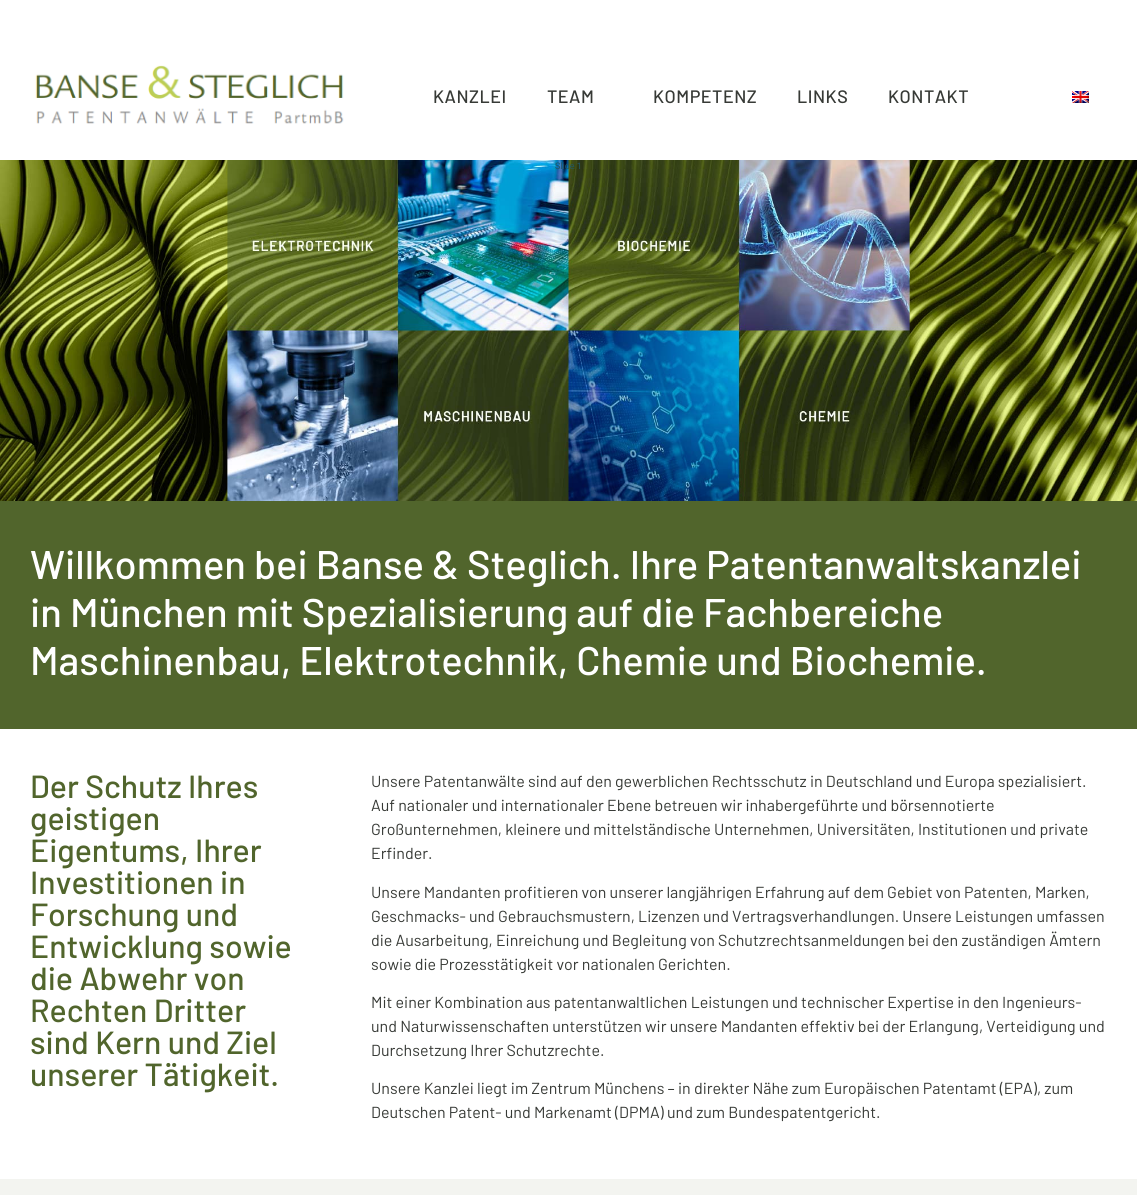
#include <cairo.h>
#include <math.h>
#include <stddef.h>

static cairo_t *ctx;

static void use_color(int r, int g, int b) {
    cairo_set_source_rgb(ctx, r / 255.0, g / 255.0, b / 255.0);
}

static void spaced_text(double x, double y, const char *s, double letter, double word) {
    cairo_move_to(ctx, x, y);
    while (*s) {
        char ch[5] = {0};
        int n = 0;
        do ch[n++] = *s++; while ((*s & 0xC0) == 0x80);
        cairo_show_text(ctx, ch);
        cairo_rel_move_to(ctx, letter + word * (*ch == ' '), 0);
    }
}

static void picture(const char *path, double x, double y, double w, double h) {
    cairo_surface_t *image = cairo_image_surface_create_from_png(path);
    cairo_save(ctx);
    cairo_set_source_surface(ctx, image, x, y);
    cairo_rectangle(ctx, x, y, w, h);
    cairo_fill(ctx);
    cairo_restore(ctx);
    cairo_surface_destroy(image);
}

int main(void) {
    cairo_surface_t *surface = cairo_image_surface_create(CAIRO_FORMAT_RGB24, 1137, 1195);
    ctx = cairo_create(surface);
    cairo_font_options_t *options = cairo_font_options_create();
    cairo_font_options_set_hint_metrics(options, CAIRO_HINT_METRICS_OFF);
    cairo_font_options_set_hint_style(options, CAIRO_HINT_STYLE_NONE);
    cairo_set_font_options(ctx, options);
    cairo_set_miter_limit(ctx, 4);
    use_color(255, 255, 255);
    cairo_paint(ctx);
    picture("img1.png", 35, 65, 309, 59);
    cairo_select_font_face(ctx, "Barlow Medium", CAIRO_FONT_SLANT_NORMAL, CAIRO_FONT_WEIGHT_NORMAL);
    cairo_set_font_size(ctx, 18);
    use_color(55, 58, 54);
    spaced_text(433, 103, "KANZLEI", 0.5, 0);
    spaced_text(547, 103, "TEAM", 0.5, 0);
    spaced_text(653, 103, "KOMPETENZ", 0.5, 0);
    spaced_text(797, 103, "LINKS", 0.5, 0);
    spaced_text(888, 103, "KONTAKT", 0.5, 0);
    picture("img2.png", 1072, 91, 17, 12);
    picture("img3.png", 0, 160, 1137, 341);
    cairo_select_font_face(ctx, "Roboto", CAIRO_FONT_SLANT_NORMAL, CAIRO_FONT_WEIGHT_NORMAL);
    cairo_set_font_size(ctx, 9);
    use_color(35, 86, 97);
    cairo_move_to(ctx, 555, 169);
    cairo_show_text(ctx, "Slide 1");
    use_color(81, 101, 44);
    cairo_rectangle(ctx, 0, 501, 1137, 228);
    cairo_fill(ctx);
    cairo_select_font_face(ctx, "Barlow Medium", CAIRO_FONT_SLANT_NORMAL, CAIRO_FONT_WEIGHT_NORMAL);
    cairo_set_font_size(ctx, 40);
    use_color(255, 255, 255);
    cairo_move_to(ctx, 30, 579);
    cairo_show_text(ctx, "Willkommen bei Banse & Steglich. Ihre Patentanwaltskanzlei");
    cairo_move_to(ctx, 30, 627);
    cairo_show_text(ctx, "in München mit Spezialisierung auf die Fachbereiche");
    cairo_move_to(ctx, 30, 675);
    cairo_show_text(ctx, "Maschinenbau, Elektrotechnik, Chemie und Biochemie.");
    cairo_set_font_size(ctx, 32);
    use_color(81, 101, 44);
    cairo_move_to(ctx, 30, 798);
    cairo_show_text(ctx, "Der Schutz Ihres");
    cairo_move_to(ctx, 30, 830);
    cairo_show_text(ctx, "geistigen");
    cairo_move_to(ctx, 30, 862);
    cairo_show_text(ctx, "Eigentums, Ihrer");
    cairo_move_to(ctx, 30, 894);
    cairo_show_text(ctx, "Investitionen in");
    cairo_move_to(ctx, 30, 926);
    cairo_show_text(ctx, "Forschung und");
    cairo_move_to(ctx, 30, 958);
    cairo_show_text(ctx, "Entwicklung sowie");
    cairo_move_to(ctx, 30, 990);
    cairo_show_text(ctx, "die Abwehr von");
    cairo_move_to(ctx, 30, 1022);
    cairo_show_text(ctx, "Rechten Dritter");
    cairo_move_to(ctx, 30, 1054);
    cairo_show_text(ctx, "sind Kern und Ziel");
    cairo_move_to(ctx, 30, 1086);
    cairo_show_text(ctx, "unserer Tätigkeit.");
    cairo_select_font_face(ctx, "Barlow", CAIRO_FONT_SLANT_NORMAL, CAIRO_FONT_WEIGHT_NORMAL);
    cairo_set_font_size(ctx, 16);
    use_color(55, 58, 54);
    cairo_move_to(ctx, 371, 787);
    cairo_show_text(ctx, "Unsere Patentanwälte sind auf den gewerblichen Rechtsschutz in Deutschland und Europa spezialisiert.");
    cairo_move_to(ctx, 371, 811);
    cairo_show_text(ctx, "Auf nationaler und internationaler Ebene betreuen wir inhabergeführte und börsennotierte");
    cairo_move_to(ctx, 371, 835);
    cairo_show_text(ctx, "Großunternehmen, kleinere und mittelständische Unternehmen, Universitäten, Institutionen und private");
    cairo_move_to(ctx, 371, 859);
    cairo_show_text(ctx, "Erfinder.");
    cairo_move_to(ctx, 371, 898);
    cairo_show_text(ctx, "Unsere Mandanten profitieren von unserer langjährigen Erfahrung auf dem Gebiet von Patenten, Marken,");
    cairo_move_to(ctx, 371, 922);
    cairo_show_text(ctx, "Geschmacks- und Gebrauchsmustern, Lizenzen und Vertragsverhandlungen. Unsere Leistungen umfassen");
    cairo_move_to(ctx, 371, 946);
    cairo_show_text(ctx, "die Ausarbeitung, Einreichung und Begleitung von Schutzrechtsanmeldungen bei den zuständigen Ämtern");
    cairo_move_to(ctx, 371, 970);
    cairo_show_text(ctx, "sowie die Prozesstätigkeit vor nationalen Gerichten.");
    cairo_move_to(ctx, 371, 1008);
    cairo_show_text(ctx, "Mit einer Kombination aus patentanwaltlichen Leistungen und technischer Expertise in den Ingenieurs-");
    cairo_move_to(ctx, 371, 1032);
    cairo_show_text(ctx, "und Naturwissenschaften unterstützen wir unsere Mandanten effektiv bei der Erlangung, Verteidigung und");
    cairo_move_to(ctx, 371, 1056);
    cairo_show_text(ctx, "Durchsetzung Ihrer Schutzrechte.");
    cairo_move_to(ctx, 371, 1094);
    cairo_show_text(ctx, "Unsere Kanzlei liegt im Zentrum Münchens – in direkter Nähe zum Europäischen Patentamt (EPA), zum");
    cairo_move_to(ctx, 371, 1118);
    cairo_show_text(ctx, "Deutschen Patent- und Markenamt (DPMA) und zum Bundespatentgericht.");
    use_color(243, 244, 240);
    cairo_rectangle(ctx, 0, 1179, 1137, 16);
    cairo_fill(ctx);
    cairo_surface_write_to_png(surface, "result.png");
    cairo_font_options_destroy(options);
    cairo_destroy(ctx);
    cairo_surface_destroy(surface);
    return 0;
}
